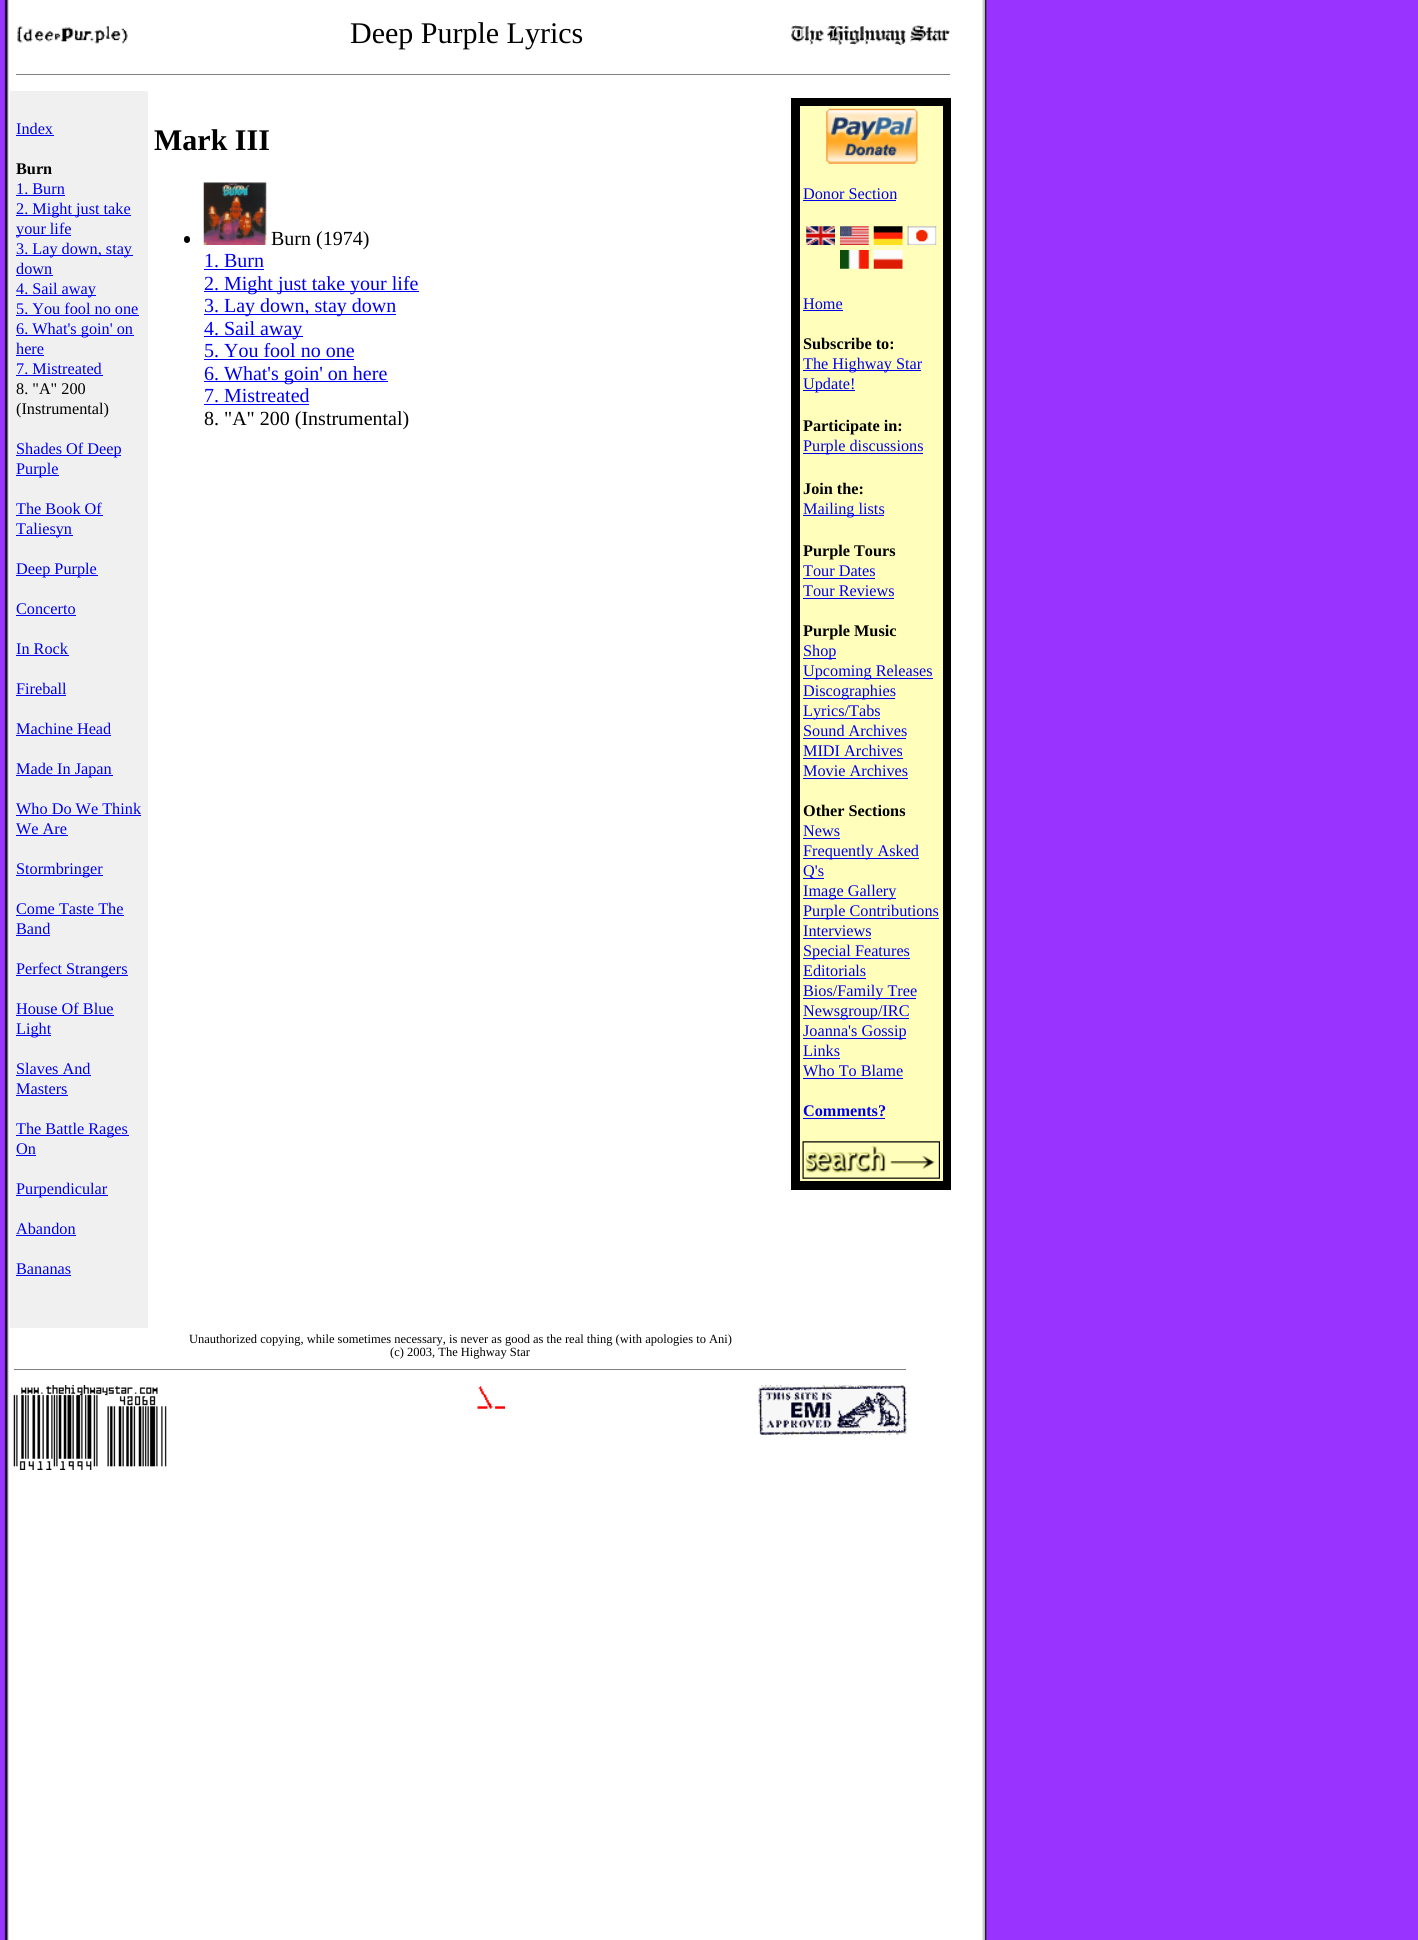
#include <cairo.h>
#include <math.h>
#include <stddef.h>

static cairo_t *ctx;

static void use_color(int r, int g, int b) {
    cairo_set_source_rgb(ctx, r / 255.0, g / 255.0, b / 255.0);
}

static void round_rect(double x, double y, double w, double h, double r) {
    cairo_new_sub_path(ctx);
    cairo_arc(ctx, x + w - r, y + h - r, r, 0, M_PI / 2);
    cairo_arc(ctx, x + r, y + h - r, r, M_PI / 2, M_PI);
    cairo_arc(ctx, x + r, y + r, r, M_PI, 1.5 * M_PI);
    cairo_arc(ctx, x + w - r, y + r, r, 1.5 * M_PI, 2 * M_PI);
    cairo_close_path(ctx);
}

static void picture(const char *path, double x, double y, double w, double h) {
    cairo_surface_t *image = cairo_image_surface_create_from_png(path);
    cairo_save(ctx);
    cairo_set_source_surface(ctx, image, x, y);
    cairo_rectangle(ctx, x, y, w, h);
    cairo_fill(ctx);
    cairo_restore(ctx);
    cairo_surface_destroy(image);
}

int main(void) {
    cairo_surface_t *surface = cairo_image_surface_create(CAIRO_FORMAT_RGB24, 1418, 1940);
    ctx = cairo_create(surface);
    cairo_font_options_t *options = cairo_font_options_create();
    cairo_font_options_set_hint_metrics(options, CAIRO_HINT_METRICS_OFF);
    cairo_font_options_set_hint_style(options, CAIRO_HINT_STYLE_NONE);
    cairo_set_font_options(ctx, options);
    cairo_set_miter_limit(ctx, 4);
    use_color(255, 255, 255);
    cairo_paint(ctx);
    picture("img1.png", 0, 0, 1418, 1940);
    picture("img2.png", 17, 26, 111, 18);
    cairo_select_font_face(ctx, "Liberation Serif", CAIRO_FONT_SLANT_NORMAL, CAIRO_FONT_WEIGHT_NORMAL);
    cairo_set_font_size(ctx, 30);
    use_color(0, 0, 0);
    cairo_move_to(ctx, 350, 43);
    cairo_show_text(ctx, "Deep Purple Lyrics");
    picture("img3.png", 791, 25, 159, 20);
    use_color(128, 128, 128);
    cairo_rectangle(ctx, 16, 74, 934, 1);
    cairo_fill(ctx);
    use_color(240, 240, 240);
    cairo_rectangle(ctx, 10, 91, 138, 1237);
    cairo_fill(ctx);
    cairo_set_font_size(ctx, 16.25);
    use_color(0, 0, 238);
    cairo_move_to(ctx, 16, 134);
    cairo_show_text(ctx, "Index");
    cairo_rectangle(ctx, 16, 135, 38, 1);
    cairo_fill(ctx);
    cairo_select_font_face(ctx, "Liberation Serif", CAIRO_FONT_SLANT_NORMAL, CAIRO_FONT_WEIGHT_BOLD);
    use_color(0, 0, 0);
    cairo_move_to(ctx, 16, 174);
    cairo_show_text(ctx, "Burn");
    cairo_select_font_face(ctx, "Liberation Serif", CAIRO_FONT_SLANT_NORMAL, CAIRO_FONT_WEIGHT_NORMAL);
    use_color(0, 0, 238);
    cairo_move_to(ctx, 16, 194);
    cairo_show_text(ctx, "1. Burn");
    cairo_rectangle(ctx, 16, 195, 49, 1);
    cairo_fill(ctx);
    cairo_rectangle(ctx, 16, 215, 115, 1);
    cairo_fill(ctx);
    cairo_move_to(ctx, 16, 214);
    cairo_show_text(ctx, "2. Might just take");
    cairo_rectangle(ctx, 16, 235, 55, 1);
    cairo_fill(ctx);
    cairo_move_to(ctx, 16, 234);
    cairo_show_text(ctx, "your life");
    cairo_rectangle(ctx, 16, 255, 117, 1);
    cairo_fill(ctx);
    cairo_move_to(ctx, 16, 254);
    cairo_show_text(ctx, "3. Lay down, stay");
    cairo_move_to(ctx, 16, 274);
    cairo_show_text(ctx, "down");
    cairo_rectangle(ctx, 16, 275, 37, 1);
    cairo_fill(ctx);
    cairo_rectangle(ctx, 16, 295, 80, 1);
    cairo_fill(ctx);
    cairo_move_to(ctx, 16, 294);
    cairo_show_text(ctx, "4. Sail away");
    cairo_move_to(ctx, 16, 314);
    cairo_show_text(ctx, "5. You fool no one");
    cairo_rectangle(ctx, 16, 315, 123, 1);
    cairo_fill(ctx);
    cairo_rectangle(ctx, 16, 335, 118, 1);
    cairo_fill(ctx);
    cairo_move_to(ctx, 16, 334);
    cairo_show_text(ctx, "6. What's goin' on");
    cairo_move_to(ctx, 16, 354);
    cairo_show_text(ctx, "here");
    cairo_rectangle(ctx, 16, 355, 28, 1);
    cairo_fill(ctx);
    cairo_move_to(ctx, 16, 374);
    cairo_show_text(ctx, "7. Mistreated");
    cairo_rectangle(ctx, 16, 375, 87, 1);
    cairo_fill(ctx);
    use_color(0, 0, 0);
    cairo_move_to(ctx, 16, 394);
    cairo_show_text(ctx, "8. \"A\" 200");
    cairo_move_to(ctx, 16, 414);
    cairo_show_text(ctx, "(Instrumental)");
    use_color(0, 0, 238);
    cairo_rectangle(ctx, 16, 455, 105, 1);
    cairo_fill(ctx);
    cairo_move_to(ctx, 16, 454);
    cairo_show_text(ctx, "Shades Of Deep");
    cairo_rectangle(ctx, 16, 475, 43, 1);
    cairo_fill(ctx);
    cairo_move_to(ctx, 16, 474);
    cairo_show_text(ctx, "Purple");
    cairo_move_to(ctx, 16, 514);
    cairo_show_text(ctx, "The Book Of");
    cairo_rectangle(ctx, 16, 515, 87, 1);
    cairo_fill(ctx);
    cairo_rectangle(ctx, 16, 535, 57, 1);
    cairo_fill(ctx);
    cairo_move_to(ctx, 16, 534);
    cairo_show_text(ctx, "Taliesyn");
    cairo_rectangle(ctx, 16, 575, 82, 1);
    cairo_fill(ctx);
    cairo_move_to(ctx, 16, 574);
    cairo_show_text(ctx, "Deep Purple");
    cairo_move_to(ctx, 16, 614);
    cairo_show_text(ctx, "Concerto");
    cairo_rectangle(ctx, 16, 615, 60, 1);
    cairo_fill(ctx);
    cairo_move_to(ctx, 16, 654);
    cairo_show_text(ctx, "In Rock");
    cairo_rectangle(ctx, 16, 655, 53, 1);
    cairo_fill(ctx);
    cairo_move_to(ctx, 16, 694);
    cairo_show_text(ctx, "Fireball");
    cairo_rectangle(ctx, 16, 695, 50, 1);
    cairo_fill(ctx);
    cairo_move_to(ctx, 16, 734);
    cairo_show_text(ctx, "Machine Head");
    cairo_rectangle(ctx, 16, 735, 95, 1);
    cairo_fill(ctx);
    cairo_rectangle(ctx, 16, 775, 97, 1);
    cairo_fill(ctx);
    cairo_move_to(ctx, 16, 774);
    cairo_show_text(ctx, "Made In Japan");
    cairo_move_to(ctx, 16, 814);
    cairo_show_text(ctx, "Who Do We Think");
    cairo_rectangle(ctx, 16, 815, 125, 1);
    cairo_fill(ctx);
    cairo_move_to(ctx, 16, 834);
    cairo_show_text(ctx, "We Are");
    cairo_rectangle(ctx, 16, 835, 52, 1);
    cairo_fill(ctx);
    cairo_rectangle(ctx, 16, 875, 87, 1);
    cairo_fill(ctx);
    cairo_move_to(ctx, 16, 874);
    cairo_show_text(ctx, "Stormbringer");
    cairo_move_to(ctx, 16, 914);
    cairo_show_text(ctx, "Come Taste The");
    cairo_rectangle(ctx, 16, 915, 108, 1);
    cairo_fill(ctx);
    cairo_move_to(ctx, 16, 934);
    cairo_show_text(ctx, "Band");
    cairo_rectangle(ctx, 16, 935, 34, 1);
    cairo_fill(ctx);
    cairo_rectangle(ctx, 16, 975, 112, 1);
    cairo_fill(ctx);
    cairo_move_to(ctx, 16, 974);
    cairo_show_text(ctx, "Perfect Strangers");
    cairo_move_to(ctx, 16, 1014);
    cairo_show_text(ctx, "House Of Blue");
    cairo_rectangle(ctx, 16, 1015, 98, 1);
    cairo_fill(ctx);
    cairo_rectangle(ctx, 16, 1035, 35, 1);
    cairo_fill(ctx);
    cairo_move_to(ctx, 16, 1034);
    cairo_show_text(ctx, "Light");
    cairo_move_to(ctx, 16, 1074);
    cairo_show_text(ctx, "Slaves And");
    cairo_rectangle(ctx, 16, 1075, 75, 1);
    cairo_fill(ctx);
    cairo_move_to(ctx, 16, 1094);
    cairo_show_text(ctx, "Masters");
    cairo_rectangle(ctx, 16, 1095, 52, 1);
    cairo_fill(ctx);
    cairo_rectangle(ctx, 16, 1135, 113, 1);
    cairo_fill(ctx);
    cairo_move_to(ctx, 16, 1134);
    cairo_show_text(ctx, "The Battle Rages");
    cairo_move_to(ctx, 16, 1154);
    cairo_show_text(ctx, "On");
    cairo_rectangle(ctx, 16, 1155, 20, 1);
    cairo_fill(ctx);
    cairo_rectangle(ctx, 16, 1195, 92, 1);
    cairo_fill(ctx);
    cairo_move_to(ctx, 16, 1194);
    cairo_show_text(ctx, "Purpendicular");
    cairo_move_to(ctx, 16, 1234);
    cairo_show_text(ctx, "Abandon");
    cairo_rectangle(ctx, 16, 1235, 60, 1);
    cairo_fill(ctx);
    cairo_move_to(ctx, 16, 1274);
    cairo_show_text(ctx, "Bananas");
    cairo_rectangle(ctx, 16, 1275, 55, 1);
    cairo_fill(ctx);
    cairo_select_font_face(ctx, "Liberation Serif", CAIRO_FONT_SLANT_NORMAL, CAIRO_FONT_WEIGHT_BOLD);
    cairo_set_font_size(ctx, 30);
    use_color(0, 0, 0);
    cairo_move_to(ctx, 154, 150);
    cairo_show_text(ctx, "Mark III");
    round_rect(184, 236, 6, 7, 3);
    cairo_fill(ctx);
    picture("img4.png", 203, 182, 64, 63);
    cairo_select_font_face(ctx, "Liberation Serif", CAIRO_FONT_SLANT_NORMAL, CAIRO_FONT_WEIGHT_NORMAL);
    cairo_set_font_size(ctx, 20);
    cairo_move_to(ctx, 271, 245);
    cairo_show_text(ctx, "Burn (1974)");
    use_color(0, 0, 238);
    cairo_move_to(ctx, 204, 267);
    cairo_show_text(ctx, "1. Burn");
    cairo_rectangle(ctx, 204, 269, 60, 1);
    cairo_fill(ctx);
    cairo_rectangle(ctx, 204, 291, 215, 1);
    cairo_fill(ctx);
    cairo_move_to(ctx, 204, 290);
    cairo_show_text(ctx, "2. Might just take your life");
    cairo_rectangle(ctx, 204, 314, 192, 1);
    cairo_fill(ctx);
    cairo_move_to(ctx, 204, 312);
    cairo_show_text(ctx, "3. Lay down, stay down");
    cairo_rectangle(ctx, 204, 336, 99, 1);
    cairo_fill(ctx);
    cairo_move_to(ctx, 204, 335);
    cairo_show_text(ctx, "4. Sail away");
    cairo_move_to(ctx, 204, 357);
    cairo_show_text(ctx, "5. You fool no one");
    cairo_rectangle(ctx, 204, 359, 150, 1);
    cairo_fill(ctx);
    cairo_rectangle(ctx, 204, 381, 184, 1);
    cairo_fill(ctx);
    cairo_move_to(ctx, 204, 380);
    cairo_show_text(ctx, "6. What's goin' on here");
    cairo_move_to(ctx, 204, 402);
    cairo_show_text(ctx, "7. Mistreated");
    cairo_rectangle(ctx, 204, 404, 105, 1);
    cairo_fill(ctx);
    use_color(0, 0, 0);
    cairo_move_to(ctx, 204, 425);
    cairo_show_text(ctx, "8. \"A\" 200 (Instrumental)");
    cairo_rectangle(ctx, 791, 98, 160, 1092);
    cairo_fill(ctx);
    use_color(255, 255, 187);
    cairo_rectangle(ctx, 800, 106, 143, 1075);
    cairo_fill(ctx);
    picture("img5.png", 826, 108, 92, 56);
    cairo_set_font_size(ctx, 16.25);
    use_color(0, 0, 238);
    cairo_move_to(ctx, 803, 199);
    cairo_show_text(ctx, "Donor Section");
    cairo_rectangle(ctx, 803, 200, 93, 1);
    cairo_fill(ctx);
    picture("img6.png", 806, 226, 29, 19);
    picture("img7.png", 840, 226, 29, 19);
    picture("img8.png", 873, 226, 30, 19);
    picture("img9.png", 907, 226, 30, 19);
    picture("img10.png", 840, 250, 29, 19);
    picture("img11.png", 873, 250, 30, 19);
    cairo_move_to(ctx, 803, 309);
    cairo_show_text(ctx, "Home");
    cairo_rectangle(ctx, 803, 310, 40, 1);
    cairo_fill(ctx);
    cairo_select_font_face(ctx, "Liberation Serif", CAIRO_FONT_SLANT_NORMAL, CAIRO_FONT_WEIGHT_BOLD);
    use_color(0, 0, 0);
    cairo_move_to(ctx, 803, 349);
    cairo_show_text(ctx, "Subscribe to:");
    use_color(0, 0, 238);
    cairo_rectangle(ctx, 803, 370, 118, 1);
    cairo_fill(ctx);
    cairo_select_font_face(ctx, "Liberation Serif", CAIRO_FONT_SLANT_NORMAL, CAIRO_FONT_WEIGHT_NORMAL);
    cairo_move_to(ctx, 803, 369);
    cairo_show_text(ctx, "The Highway Star");
    cairo_rectangle(ctx, 803, 390, 52, 1);
    cairo_fill(ctx);
    cairo_move_to(ctx, 803, 389);
    cairo_show_text(ctx, "Update!");
    cairo_select_font_face(ctx, "Liberation Serif", CAIRO_FONT_SLANT_NORMAL, CAIRO_FONT_WEIGHT_BOLD);
    use_color(0, 0, 0);
    cairo_move_to(ctx, 803, 431);
    cairo_show_text(ctx, "Participate in:");
    use_color(0, 0, 238);
    cairo_rectangle(ctx, 803, 453, 120, 1);
    cairo_fill(ctx);
    cairo_select_font_face(ctx, "Liberation Serif", CAIRO_FONT_SLANT_NORMAL, CAIRO_FONT_WEIGHT_NORMAL);
    cairo_move_to(ctx, 803, 451);
    cairo_show_text(ctx, "Purple discussions");
    cairo_select_font_face(ctx, "Liberation Serif", CAIRO_FONT_SLANT_NORMAL, CAIRO_FONT_WEIGHT_BOLD);
    use_color(0, 0, 0);
    cairo_move_to(ctx, 803, 494);
    cairo_show_text(ctx, "Join the:");
    use_color(0, 0, 238);
    cairo_rectangle(ctx, 803, 515, 81, 1);
    cairo_fill(ctx);
    cairo_select_font_face(ctx, "Liberation Serif", CAIRO_FONT_SLANT_NORMAL, CAIRO_FONT_WEIGHT_NORMAL);
    cairo_move_to(ctx, 803, 514);
    cairo_show_text(ctx, "Mailing lists");
    cairo_select_font_face(ctx, "Liberation Serif", CAIRO_FONT_SLANT_NORMAL, CAIRO_FONT_WEIGHT_BOLD);
    use_color(0, 0, 0);
    cairo_move_to(ctx, 803, 556);
    cairo_show_text(ctx, "Purple Tours");
    cairo_select_font_face(ctx, "Liberation Serif", CAIRO_FONT_SLANT_NORMAL, CAIRO_FONT_WEIGHT_NORMAL);
    use_color(0, 0, 238);
    cairo_move_to(ctx, 803, 576);
    cairo_show_text(ctx, "Tour Dates");
    cairo_rectangle(ctx, 803, 578, 72, 1);
    cairo_fill(ctx);
    cairo_move_to(ctx, 803, 596);
    cairo_show_text(ctx, "Tour Reviews");
    cairo_rectangle(ctx, 803, 598, 91, 1);
    cairo_fill(ctx);
    cairo_select_font_face(ctx, "Liberation Serif", CAIRO_FONT_SLANT_NORMAL, CAIRO_FONT_WEIGHT_BOLD);
    use_color(0, 0, 0);
    cairo_move_to(ctx, 803, 636);
    cairo_show_text(ctx, "Purple Music");
    use_color(0, 0, 238);
    cairo_rectangle(ctx, 803, 658, 33, 1);
    cairo_fill(ctx);
    cairo_select_font_face(ctx, "Liberation Serif", CAIRO_FONT_SLANT_NORMAL, CAIRO_FONT_WEIGHT_NORMAL);
    cairo_move_to(ctx, 803, 656);
    cairo_show_text(ctx, "Shop");
    cairo_rectangle(ctx, 803, 678, 130, 1);
    cairo_fill(ctx);
    cairo_move_to(ctx, 803, 676);
    cairo_show_text(ctx, "Upcoming Releases");
    cairo_rectangle(ctx, 803, 698, 92, 1);
    cairo_fill(ctx);
    cairo_move_to(ctx, 803, 696);
    cairo_show_text(ctx, "Discographies");
    cairo_rectangle(ctx, 803, 718, 77, 1);
    cairo_fill(ctx);
    cairo_move_to(ctx, 803, 716);
    cairo_show_text(ctx, "Lyrics/Tabs");
    cairo_move_to(ctx, 803, 736);
    cairo_show_text(ctx, "Sound Archives");
    cairo_rectangle(ctx, 803, 738, 103, 1);
    cairo_fill(ctx);
    cairo_move_to(ctx, 803, 756);
    cairo_show_text(ctx, "MIDI Archives");
    cairo_rectangle(ctx, 803, 758, 100, 1);
    cairo_fill(ctx);
    cairo_move_to(ctx, 803, 776);
    cairo_show_text(ctx, "Movie Archives");
    cairo_rectangle(ctx, 803, 778, 105, 1);
    cairo_fill(ctx);
    cairo_select_font_face(ctx, "Liberation Serif", CAIRO_FONT_SLANT_NORMAL, CAIRO_FONT_WEIGHT_BOLD);
    use_color(0, 0, 0);
    cairo_move_to(ctx, 803, 816);
    cairo_show_text(ctx, "Other Sections");
    cairo_select_font_face(ctx, "Liberation Serif", CAIRO_FONT_SLANT_NORMAL, CAIRO_FONT_WEIGHT_NORMAL);
    use_color(0, 0, 238);
    cairo_move_to(ctx, 803, 836);
    cairo_show_text(ctx, "News");
    cairo_rectangle(ctx, 803, 838, 37, 1);
    cairo_fill(ctx);
    cairo_rectangle(ctx, 803, 858, 116, 1);
    cairo_fill(ctx);
    cairo_move_to(ctx, 803, 856);
    cairo_show_text(ctx, "Frequently Asked");
    cairo_rectangle(ctx, 803, 878, 21, 1);
    cairo_fill(ctx);
    cairo_move_to(ctx, 803, 876);
    cairo_show_text(ctx, "Q's");
    cairo_rectangle(ctx, 803, 898, 93, 1);
    cairo_fill(ctx);
    cairo_move_to(ctx, 803, 896);
    cairo_show_text(ctx, "Image Gallery");
    cairo_rectangle(ctx, 803, 918, 136, 1);
    cairo_fill(ctx);
    cairo_move_to(ctx, 803, 916);
    cairo_show_text(ctx, "Purple Contributions");
    cairo_move_to(ctx, 803, 936);
    cairo_show_text(ctx, "Interviews");
    cairo_rectangle(ctx, 803, 938, 68, 1);
    cairo_fill(ctx);
    cairo_rectangle(ctx, 803, 958, 107, 1);
    cairo_fill(ctx);
    cairo_move_to(ctx, 803, 956);
    cairo_show_text(ctx, "Special Features");
    cairo_move_to(ctx, 803, 976);
    cairo_show_text(ctx, "Editorials");
    cairo_rectangle(ctx, 803, 978, 63, 1);
    cairo_fill(ctx);
    cairo_rectangle(ctx, 803, 998, 113, 1);
    cairo_fill(ctx);
    cairo_move_to(ctx, 803, 996);
    cairo_show_text(ctx, "Bios/Family Tree");
    cairo_rectangle(ctx, 803, 1018, 106, 1);
    cairo_fill(ctx);
    cairo_move_to(ctx, 803, 1016);
    cairo_show_text(ctx, "Newsgroup/IRC");
    cairo_rectangle(ctx, 803, 1038, 103, 1);
    cairo_fill(ctx);
    cairo_move_to(ctx, 803, 1036);
    cairo_show_text(ctx, "Joanna's Gossip");
    cairo_move_to(ctx, 803, 1056);
    cairo_show_text(ctx, "Links");
    cairo_rectangle(ctx, 803, 1058, 37, 1);
    cairo_fill(ctx);
    cairo_move_to(ctx, 803, 1076);
    cairo_show_text(ctx, "Who To Blame");
    cairo_rectangle(ctx, 803, 1078, 100, 1);
    cairo_fill(ctx);
    cairo_select_font_face(ctx, "Liberation Serif", CAIRO_FONT_SLANT_NORMAL, CAIRO_FONT_WEIGHT_BOLD);
    cairo_move_to(ctx, 803, 1116);
    cairo_show_text(ctx, "Comments?");
    cairo_rectangle(ctx, 803, 1118, 82, 1);
    cairo_fill(ctx);
    picture("img12.png", 802, 1141, 138, 38);
    cairo_select_font_face(ctx, "Liberation Serif", CAIRO_FONT_SLANT_NORMAL, CAIRO_FONT_WEIGHT_NORMAL);
    cairo_set_font_size(ctx, 12.5);
    use_color(0, 0, 0);
    cairo_move_to(ctx, 189, 1343);
    cairo_show_text(ctx, "Unauthorized copying, while sometimes necessary, is never as good as the real thing (with apologies to Ani)");
    cairo_move_to(ctx, 390, 1356);
    cairo_show_text(ctx, "(c) 2003, The Highway Star");
    use_color(128, 128, 128);
    cairo_rectangle(ctx, 14, 1369, 892, 1);
    cairo_fill(ctx);
    picture("img13.png", 13, 1385, 154, 85);
    picture("img14.png", 477, 1386, 28, 23);
    picture("img15.png", 758, 1385, 149, 50);
    cairo_surface_write_to_png(surface, "result.png");
    cairo_font_options_destroy(options);
    cairo_destroy(ctx);
    cairo_surface_destroy(surface);
    return 0;
}
